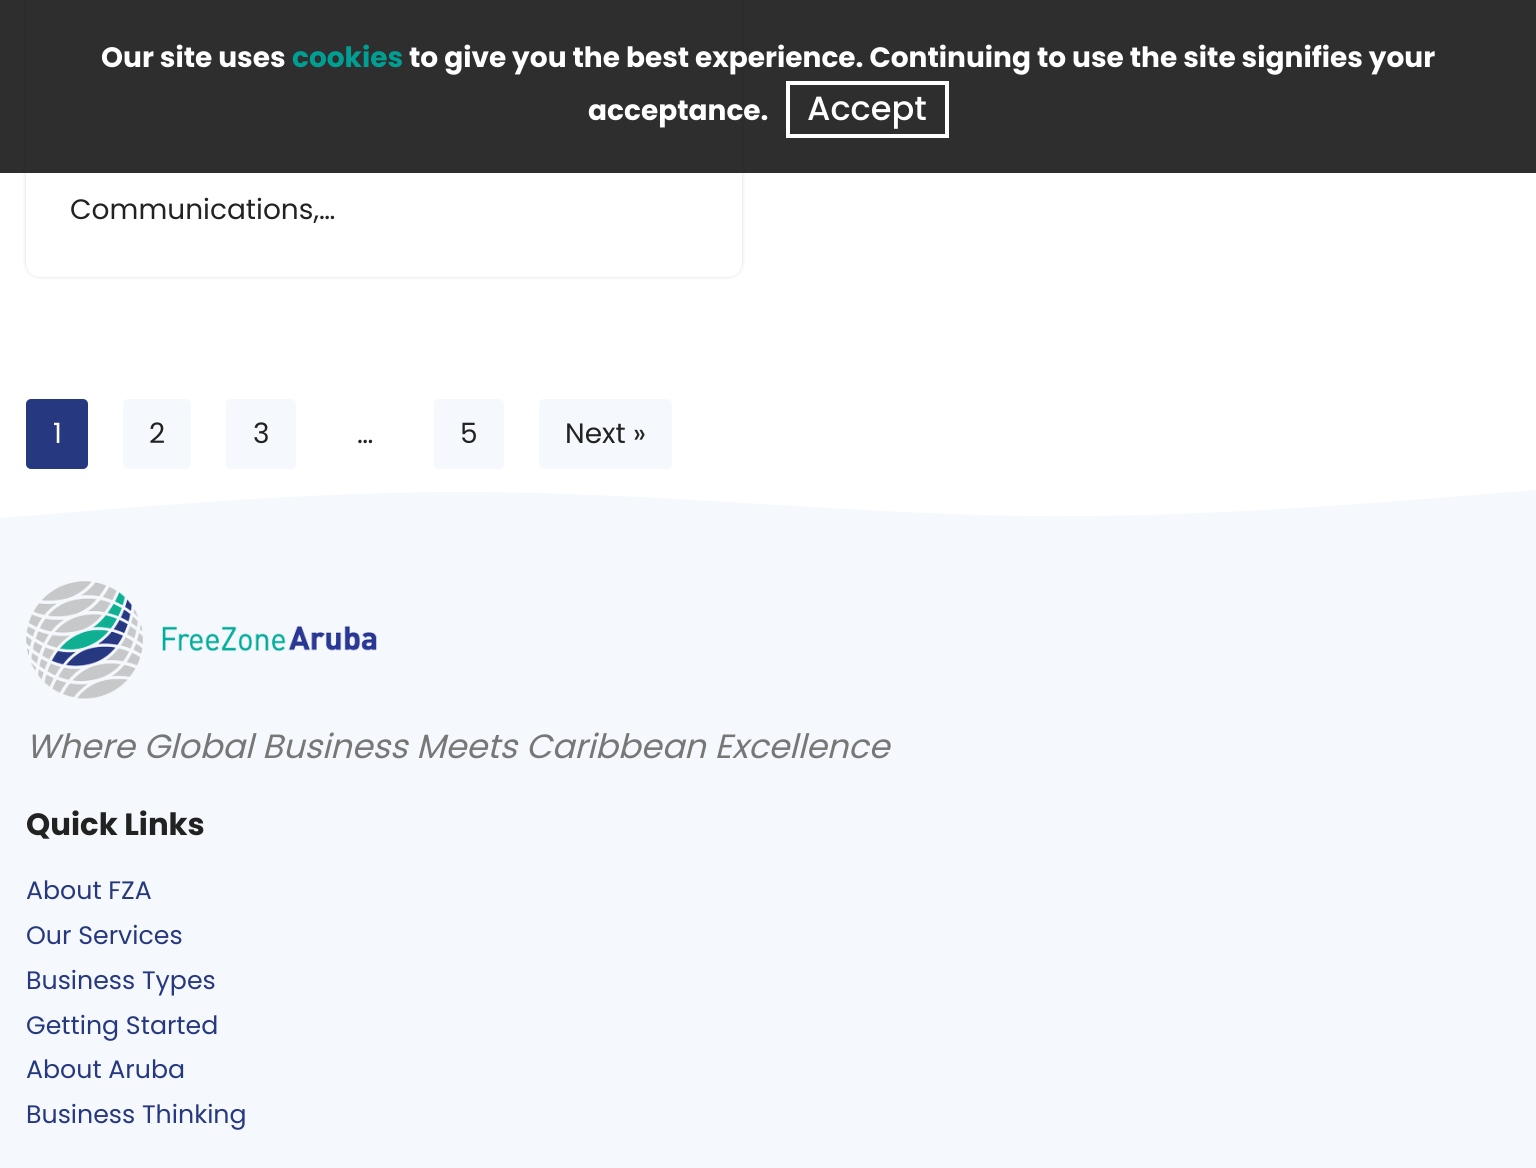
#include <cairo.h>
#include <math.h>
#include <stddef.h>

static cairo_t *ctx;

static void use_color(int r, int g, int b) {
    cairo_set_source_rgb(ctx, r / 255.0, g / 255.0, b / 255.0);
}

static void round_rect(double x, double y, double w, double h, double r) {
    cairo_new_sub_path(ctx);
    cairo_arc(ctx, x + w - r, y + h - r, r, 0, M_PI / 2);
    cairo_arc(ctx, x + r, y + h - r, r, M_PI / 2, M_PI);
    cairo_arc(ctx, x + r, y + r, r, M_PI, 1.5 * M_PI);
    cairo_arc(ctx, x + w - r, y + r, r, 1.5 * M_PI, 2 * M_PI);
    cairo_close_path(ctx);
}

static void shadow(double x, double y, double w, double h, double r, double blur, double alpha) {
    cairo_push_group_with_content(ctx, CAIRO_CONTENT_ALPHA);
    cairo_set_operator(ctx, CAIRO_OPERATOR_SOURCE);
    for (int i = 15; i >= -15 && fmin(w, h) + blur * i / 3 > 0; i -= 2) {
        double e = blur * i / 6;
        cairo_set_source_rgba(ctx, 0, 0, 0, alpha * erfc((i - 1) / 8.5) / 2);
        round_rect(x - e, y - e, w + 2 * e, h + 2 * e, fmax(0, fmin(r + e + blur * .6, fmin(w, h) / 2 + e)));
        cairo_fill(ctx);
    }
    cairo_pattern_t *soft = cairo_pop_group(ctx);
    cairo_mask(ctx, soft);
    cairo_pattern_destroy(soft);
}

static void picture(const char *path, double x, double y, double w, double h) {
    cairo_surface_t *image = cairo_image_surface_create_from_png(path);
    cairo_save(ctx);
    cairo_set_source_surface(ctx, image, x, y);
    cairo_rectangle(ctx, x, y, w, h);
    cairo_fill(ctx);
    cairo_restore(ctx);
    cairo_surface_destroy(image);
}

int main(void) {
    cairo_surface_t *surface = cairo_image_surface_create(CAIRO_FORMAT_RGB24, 1536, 1168);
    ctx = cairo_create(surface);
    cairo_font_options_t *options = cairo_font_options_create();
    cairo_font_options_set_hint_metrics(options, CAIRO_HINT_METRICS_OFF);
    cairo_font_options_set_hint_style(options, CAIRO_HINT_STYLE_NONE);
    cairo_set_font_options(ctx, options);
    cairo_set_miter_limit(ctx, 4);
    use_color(255, 255, 255);
    cairo_paint(ctx);
    use_color(0, 0, 0);
    shadow(26, -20, 716, 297, 14, 2, 0.15);
    use_color(255, 255, 255);
    round_rect(26, -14, 716, 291, 14);
    cairo_fill(ctx);
    cairo_set_source_rgba(ctx, 0, 0, 0, 0.82);
    cairo_rectangle(ctx, 0, 0, 1536, 173);
    cairo_fill(ctx);
    cairo_select_font_face(ctx, "Poppins", CAIRO_FONT_SLANT_NORMAL, CAIRO_FONT_WEIGHT_BOLD);
    cairo_set_font_size(ctx, 28);
    use_color(255, 255, 255);
    cairo_move_to(ctx, 101, 67);
    cairo_show_text(ctx, "Our site uses");
    use_color(0, 158, 147);
    cairo_move_to(ctx, 292, 67);
    cairo_show_text(ctx, "cookies");
    use_color(255, 255, 255);
    cairo_move_to(ctx, 409, 67);
    cairo_show_text(ctx, "to give you the best experience. Continuing to use the site signifies your");
    cairo_move_to(ctx, 588, 120);
    cairo_show_text(ctx, "acceptance.");
    cairo_rectangle(ctx, 788, 83, 159, 53);
    cairo_set_line_width(ctx, 4);
    cairo_stroke(ctx);
    cairo_select_font_face(ctx, "Poppins Medium", CAIRO_FONT_SLANT_NORMAL, CAIRO_FONT_WEIGHT_NORMAL);
    cairo_set_font_size(ctx, 33.6);
    cairo_move_to(ctx, 807, 120);
    cairo_show_text(ctx, "Accept");
    cairo_select_font_face(ctx, "Poppins", CAIRO_FONT_SLANT_NORMAL, CAIRO_FONT_WEIGHT_NORMAL);
    cairo_set_font_size(ctx, 28);
    use_color(34, 34, 34);
    cairo_move_to(ctx, 70, 219);
    cairo_show_text(ctx, "Communications,…");
    use_color(38, 56, 128);
    round_rect(26, 399, 62, 70, 5);
    cairo_fill(ctx);
    use_color(255, 255, 255);
    cairo_move_to(ctx, 53, 443);
    cairo_show_text(ctx, "1");
    use_color(245, 248, 252);
    round_rect(123, 399, 68, 70, 5);
    cairo_fill(ctx);
    use_color(34, 34, 34);
    cairo_move_to(ctx, 149, 443);
    cairo_show_text(ctx, "2");
    use_color(245, 248, 252);
    round_rect(226, 399, 70, 70, 5);
    cairo_fill(ctx);
    use_color(34, 34, 34);
    cairo_move_to(ctx, 253, 443);
    cairo_show_text(ctx, "3");
    cairo_move_to(ctx, 357, 443);
    cairo_show_text(ctx, "…");
    use_color(245, 248, 252);
    round_rect(434, 399, 70, 70, 5);
    cairo_fill(ctx);
    use_color(34, 34, 34);
    cairo_move_to(ctx, 460, 443);
    cairo_show_text(ctx, "5");
    use_color(245, 248, 252);
    round_rect(539, 399, 133, 70, 5);
    cairo_fill(ctx);
    use_color(34, 34, 34);
    cairo_move_to(ctx, 565, 443);
    cairo_show_text(ctx, "Next »");
    use_color(245, 248, 252);
    cairo_rectangle(ctx, 0, 574, 1536, 594);
    cairo_fill(ctx);
    cairo_new_path(ctx);
    cairo_move_to(ctx, 0, 518);
    cairo_curve_to(ctx, 149, 506, 298, 493, 448, 492);
    cairo_curve_to(ctx, 641, 491, 832, 513, 1024, 516);
    cairo_curve_to(ctx, 1196, 518, 1366, 504, 1536, 490);
    cairo_line_to(ctx, 1536, 574);
    cairo_line_to(ctx, 0, 574);
    cairo_close_path(ctx);
    cairo_fill(ctx);
    picture("img1.png", 26, 581, 351, 118);
    cairo_select_font_face(ctx, "Poppins", CAIRO_FONT_SLANT_ITALIC, CAIRO_FONT_WEIGHT_NORMAL);
    cairo_set_font_size(ctx, 33.6);
    use_color(119, 119, 119);
    cairo_move_to(ctx, 26, 758);
    cairo_show_text(ctx, "Where Global Business Meets Caribbean Excellence");
    cairo_select_font_face(ctx, "Poppins", CAIRO_FONT_SLANT_NORMAL, CAIRO_FONT_WEIGHT_BOLD);
    cairo_set_font_size(ctx, 30.75);
    use_color(34, 34, 34);
    cairo_move_to(ctx, 26, 835);
    cairo_show_text(ctx, "Quick Links");
    cairo_select_font_face(ctx, "Poppins", CAIRO_FONT_SLANT_NORMAL, CAIRO_FONT_WEIGHT_NORMAL);
    cairo_set_font_size(ctx, 25.25);
    use_color(38, 56, 128);
    cairo_move_to(ctx, 26, 899);
    cairo_show_text(ctx, "About FZA");
    cairo_move_to(ctx, 26, 944);
    cairo_show_text(ctx, "Our Services");
    cairo_move_to(ctx, 26, 989);
    cairo_show_text(ctx, "Business Types");
    cairo_move_to(ctx, 26, 1034);
    cairo_show_text(ctx, "Getting Started");
    cairo_move_to(ctx, 26, 1078);
    cairo_show_text(ctx, "About Aruba");
    cairo_move_to(ctx, 26, 1123);
    cairo_show_text(ctx, "Business Thinking");
    cairo_surface_write_to_png(surface, "result.png");
    cairo_font_options_destroy(options);
    cairo_destroy(ctx);
    cairo_surface_destroy(surface);
    return 0;
}
